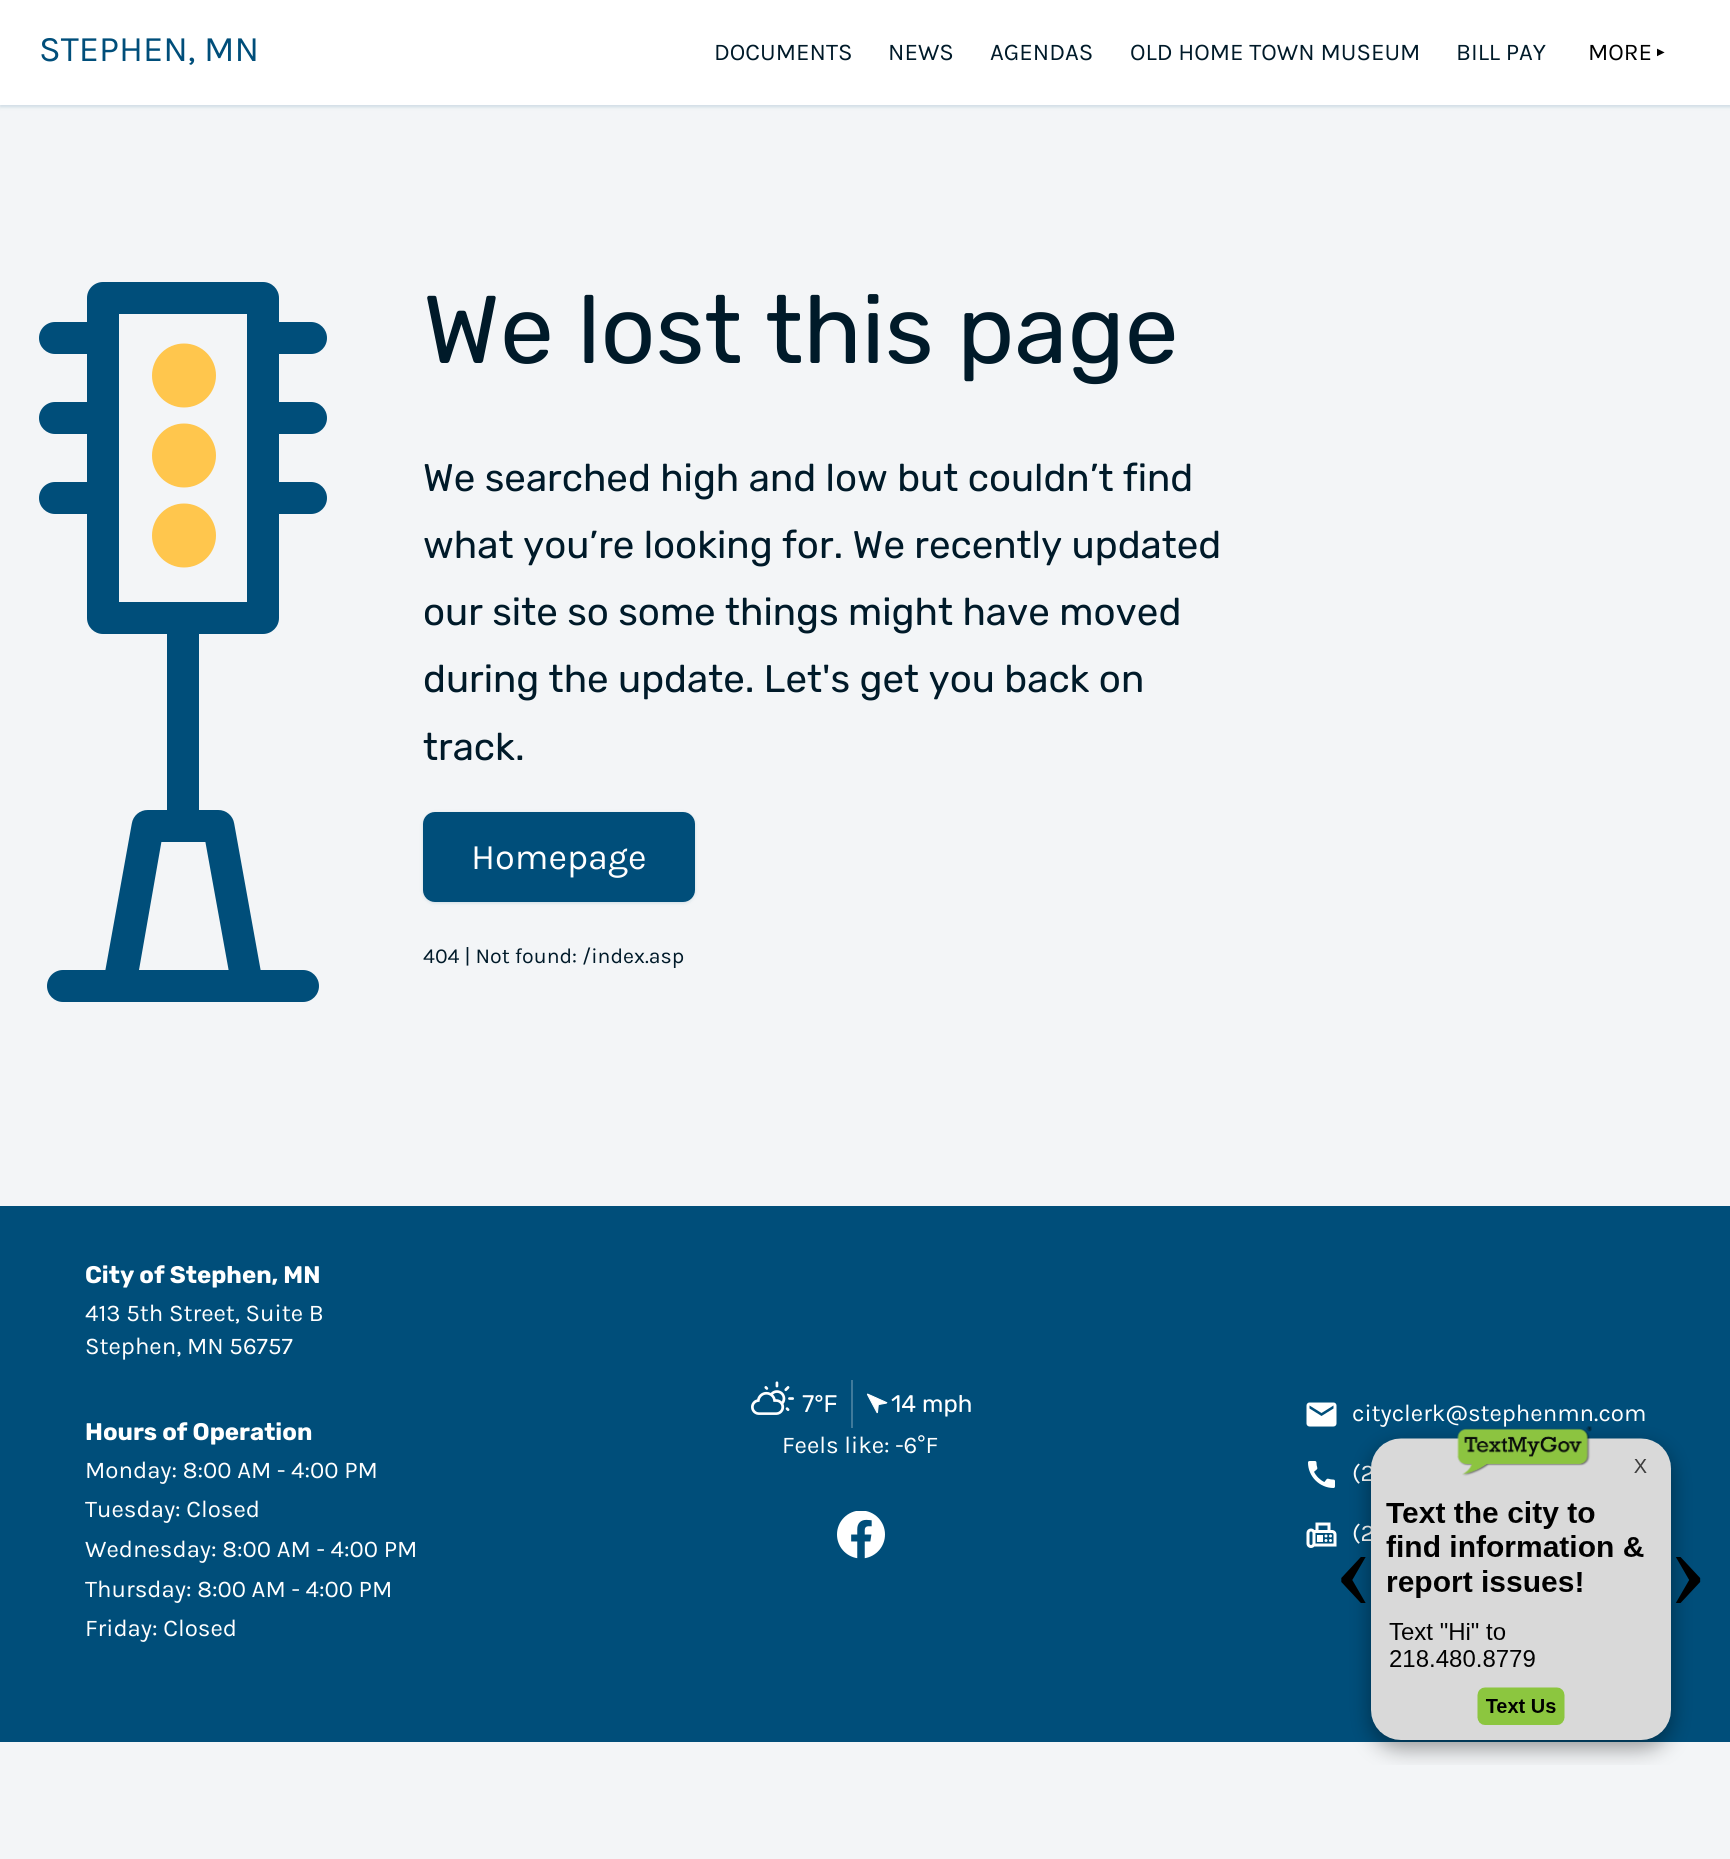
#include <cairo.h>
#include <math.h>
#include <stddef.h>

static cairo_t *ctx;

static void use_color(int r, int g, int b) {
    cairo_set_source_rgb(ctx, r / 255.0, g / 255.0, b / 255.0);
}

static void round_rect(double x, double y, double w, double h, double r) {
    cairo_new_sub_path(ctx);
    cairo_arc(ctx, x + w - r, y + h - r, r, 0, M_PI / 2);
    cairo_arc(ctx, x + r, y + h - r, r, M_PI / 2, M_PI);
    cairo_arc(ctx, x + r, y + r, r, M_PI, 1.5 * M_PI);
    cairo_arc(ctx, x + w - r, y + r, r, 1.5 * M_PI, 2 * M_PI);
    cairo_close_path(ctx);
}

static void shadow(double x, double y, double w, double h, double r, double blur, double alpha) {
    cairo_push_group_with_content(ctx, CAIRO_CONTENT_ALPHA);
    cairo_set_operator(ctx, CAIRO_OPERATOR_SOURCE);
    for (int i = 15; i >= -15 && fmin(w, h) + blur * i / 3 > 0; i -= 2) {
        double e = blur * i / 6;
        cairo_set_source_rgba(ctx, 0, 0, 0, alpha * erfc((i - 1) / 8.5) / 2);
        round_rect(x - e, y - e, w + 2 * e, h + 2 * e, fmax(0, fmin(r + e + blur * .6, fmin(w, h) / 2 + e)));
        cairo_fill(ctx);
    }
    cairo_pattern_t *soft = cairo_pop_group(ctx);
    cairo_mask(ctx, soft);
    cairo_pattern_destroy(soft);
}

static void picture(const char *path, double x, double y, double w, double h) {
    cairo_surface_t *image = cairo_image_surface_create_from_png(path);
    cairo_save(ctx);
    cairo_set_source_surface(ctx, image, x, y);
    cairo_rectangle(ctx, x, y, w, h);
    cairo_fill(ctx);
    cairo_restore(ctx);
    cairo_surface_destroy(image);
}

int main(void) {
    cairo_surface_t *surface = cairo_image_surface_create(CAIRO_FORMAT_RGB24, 1730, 1859);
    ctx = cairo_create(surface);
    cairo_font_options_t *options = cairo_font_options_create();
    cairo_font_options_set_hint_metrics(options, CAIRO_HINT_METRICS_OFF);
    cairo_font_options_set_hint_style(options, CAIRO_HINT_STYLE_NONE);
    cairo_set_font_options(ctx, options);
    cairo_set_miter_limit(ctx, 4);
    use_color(243, 245, 247);
    cairo_paint(ctx);
    use_color(0, 78, 122);
    shadow(0, 2, 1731, 105, 0, 1.5, 0.06);
    shadow(0, 2, 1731, 105, 0, 2, 0.1);
    use_color(255, 255, 255);
    cairo_rectangle(ctx, 0, 0, 1730, 105);
    cairo_fill(ctx);
    cairo_select_font_face(ctx, "Karla", CAIRO_FONT_SLANT_NORMAL, CAIRO_FONT_WEIGHT_NORMAL);
    cairo_set_font_size(ctx, 36);
    use_color(0, 78, 122);
    cairo_move_to(ctx, 39, 61);
    cairo_show_text(ctx, "STEPHEN, MN");
    cairo_set_font_size(ctx, 24);
    use_color(0, 26, 41);
    cairo_move_to(ctx, 714, 60);
    cairo_show_text(ctx, "DOCUMENTS");
    cairo_move_to(ctx, 888, 60);
    cairo_show_text(ctx, "NEWS");
    cairo_move_to(ctx, 990, 60);
    cairo_show_text(ctx, "AGENDAS");
    cairo_move_to(ctx, 1130, 60);
    cairo_show_text(ctx, "OLD HOME TOWN MUSEUM");
    cairo_move_to(ctx, 1456, 60);
    cairo_show_text(ctx, "BILL PAY");
    use_color(0, 0, 0);
    cairo_move_to(ctx, 1588, 60);
    cairo_show_text(ctx, "MORE");
    cairo_select_font_face(ctx, "Liberation Sans", CAIRO_FONT_SLANT_NORMAL, CAIRO_FONT_WEIGHT_NORMAL);
    cairo_set_font_size(ctx, 13);
    cairo_save(ctx);
    cairo_translate(ctx, 1657, 46);
    cairo_rotate(ctx, 90 * M_PI / 180);
    cairo_move_to(ctx, 0, 0);
    cairo_show_text(ctx, "▲");
    cairo_restore(ctx);
    picture("img1.png", 39, 282, 288, 720);
    cairo_select_font_face(ctx, "Rubik", CAIRO_FONT_SLANT_NORMAL, CAIRO_FONT_WEIGHT_NORMAL);
    cairo_set_font_size(ctx, 96);
    use_color(0, 26, 41);
    cairo_move_to(ctx, 423, 363);
    cairo_show_text(ctx, "We lost this page");
    cairo_set_font_size(ctx, 38.45);
    cairo_move_to(ctx, 423, 491);
    cairo_show_text(ctx, "We searched high and low but couldn’t find");
    cairo_move_to(ctx, 423, 558);
    cairo_show_text(ctx, "what you’re looking for. We recently updated");
    cairo_move_to(ctx, 423, 625);
    cairo_show_text(ctx, "our site so some things might have moved");
    cairo_move_to(ctx, 423, 692);
    cairo_show_text(ctx, "during the update. Let's get you back on");
    cairo_move_to(ctx, 423, 760);
    cairo_show_text(ctx, "track.");
    use_color(0, 78, 122);
    shadow(423, 813, 272, 90, 12, 1.5, 0.06);
    shadow(423, 813, 272, 90, 12, 2, 0.1);
    use_color(0, 78, 122);
    round_rect(423, 812, 272, 90, 12);
    cairo_fill(ctx);
    cairo_select_font_face(ctx, "Karla", CAIRO_FONT_SLANT_NORMAL, CAIRO_FONT_WEIGHT_NORMAL);
    cairo_set_font_size(ctx, 36);
    use_color(255, 255, 255);
    cairo_move_to(ctx, 471, 869);
    cairo_show_text(ctx, "Homepage");
    cairo_set_font_size(ctx, 21.3);
    use_color(0, 26, 41);
    cairo_move_to(ctx, 423, 963);
    cairo_show_text(ctx, "404 | Not found: /index.asp");
    use_color(0, 78, 122);
    cairo_rectangle(ctx, 0, 1206, 1730, 536);
    cairo_fill(ctx);
    cairo_select_font_face(ctx, "Rubik", CAIRO_FONT_SLANT_NORMAL, CAIRO_FONT_WEIGHT_BOLD);
    cairo_set_font_size(ctx, 24);
    use_color(255, 255, 255);
    cairo_move_to(ctx, 85, 1283);
    cairo_show_text(ctx, "City of Stephen, MN");
    cairo_select_font_face(ctx, "Karla", CAIRO_FONT_SLANT_NORMAL, CAIRO_FONT_WEIGHT_NORMAL);
    cairo_move_to(ctx, 85, 1321);
    cairo_show_text(ctx, "413 5th Street, Suite B");
    cairo_move_to(ctx, 85, 1354);
    cairo_show_text(ctx, "Stephen, MN 56757");
    cairo_select_font_face(ctx, "Rubik", CAIRO_FONT_SLANT_NORMAL, CAIRO_FONT_WEIGHT_BOLD);
    cairo_move_to(ctx, 85, 1440);
    cairo_show_text(ctx, "Hours of Operation");
    cairo_select_font_face(ctx, "Karla", CAIRO_FONT_SLANT_NORMAL, CAIRO_FONT_WEIGHT_NORMAL);
    cairo_move_to(ctx, 85, 1478);
    cairo_show_text(ctx, "Monday: 8:00 AM - 4:00 PM");
    cairo_move_to(ctx, 85, 1517);
    cairo_show_text(ctx, "Tuesday: Closed");
    cairo_move_to(ctx, 85, 1557);
    cairo_show_text(ctx, "Wednesday: 8:00 AM - 4:00 PM");
    cairo_move_to(ctx, 85, 1597);
    cairo_show_text(ctx, "Thursday: 8:00 AM - 4:00 PM");
    cairo_move_to(ctx, 85, 1636);
    cairo_show_text(ctx, "Friday: Closed");
    use_color(64, 122, 155);
    cairo_rectangle(ctx, 851, 1380, 2, 48);
    cairo_fill(ctx);
    picture("img2.png", 751, 1381, 43, 34);
    cairo_select_font_face(ctx, "Rubik", CAIRO_FONT_SLANT_NORMAL, CAIRO_FONT_WEIGHT_NORMAL);
    use_color(255, 255, 255);
    cairo_move_to(ctx, 802, 1412);
    cairo_show_text(ctx, "7°F");
    picture("img3.png", 866, 1393, 22, 21);
    cairo_move_to(ctx, 891, 1412);
    cairo_show_text(ctx, "14 mph");
    cairo_select_font_face(ctx, "Karla", CAIRO_FONT_SLANT_NORMAL, CAIRO_FONT_WEIGHT_NORMAL);
    cairo_move_to(ctx, 782, 1453);
    cairo_show_text(ctx, "Feels like: -6°F");
    picture("img4.png", 837, 1511, 48, 48);
    picture("img5.png", 1306, 1402, 31, 25);
    cairo_move_to(ctx, 1352, 1421);
    cairo_show_text(ctx, "cityclerk@stephenmn.com");
    picture("img6.png", 1308, 1461, 27, 27);
    cairo_move_to(ctx, 1352, 1481);
    cairo_show_text(ctx, "(2");
    picture("img7.png", 1306, 1522, 31, 26);
    cairo_move_to(ctx, 1352, 1541);
    cairo_show_text(ctx, "(2");
    picture("img8.png", 1341, 1426, 360, 339);
    cairo_surface_write_to_png(surface, "result.png");
    cairo_font_options_destroy(options);
    cairo_destroy(ctx);
    cairo_surface_destroy(surface);
    return 0;
}
